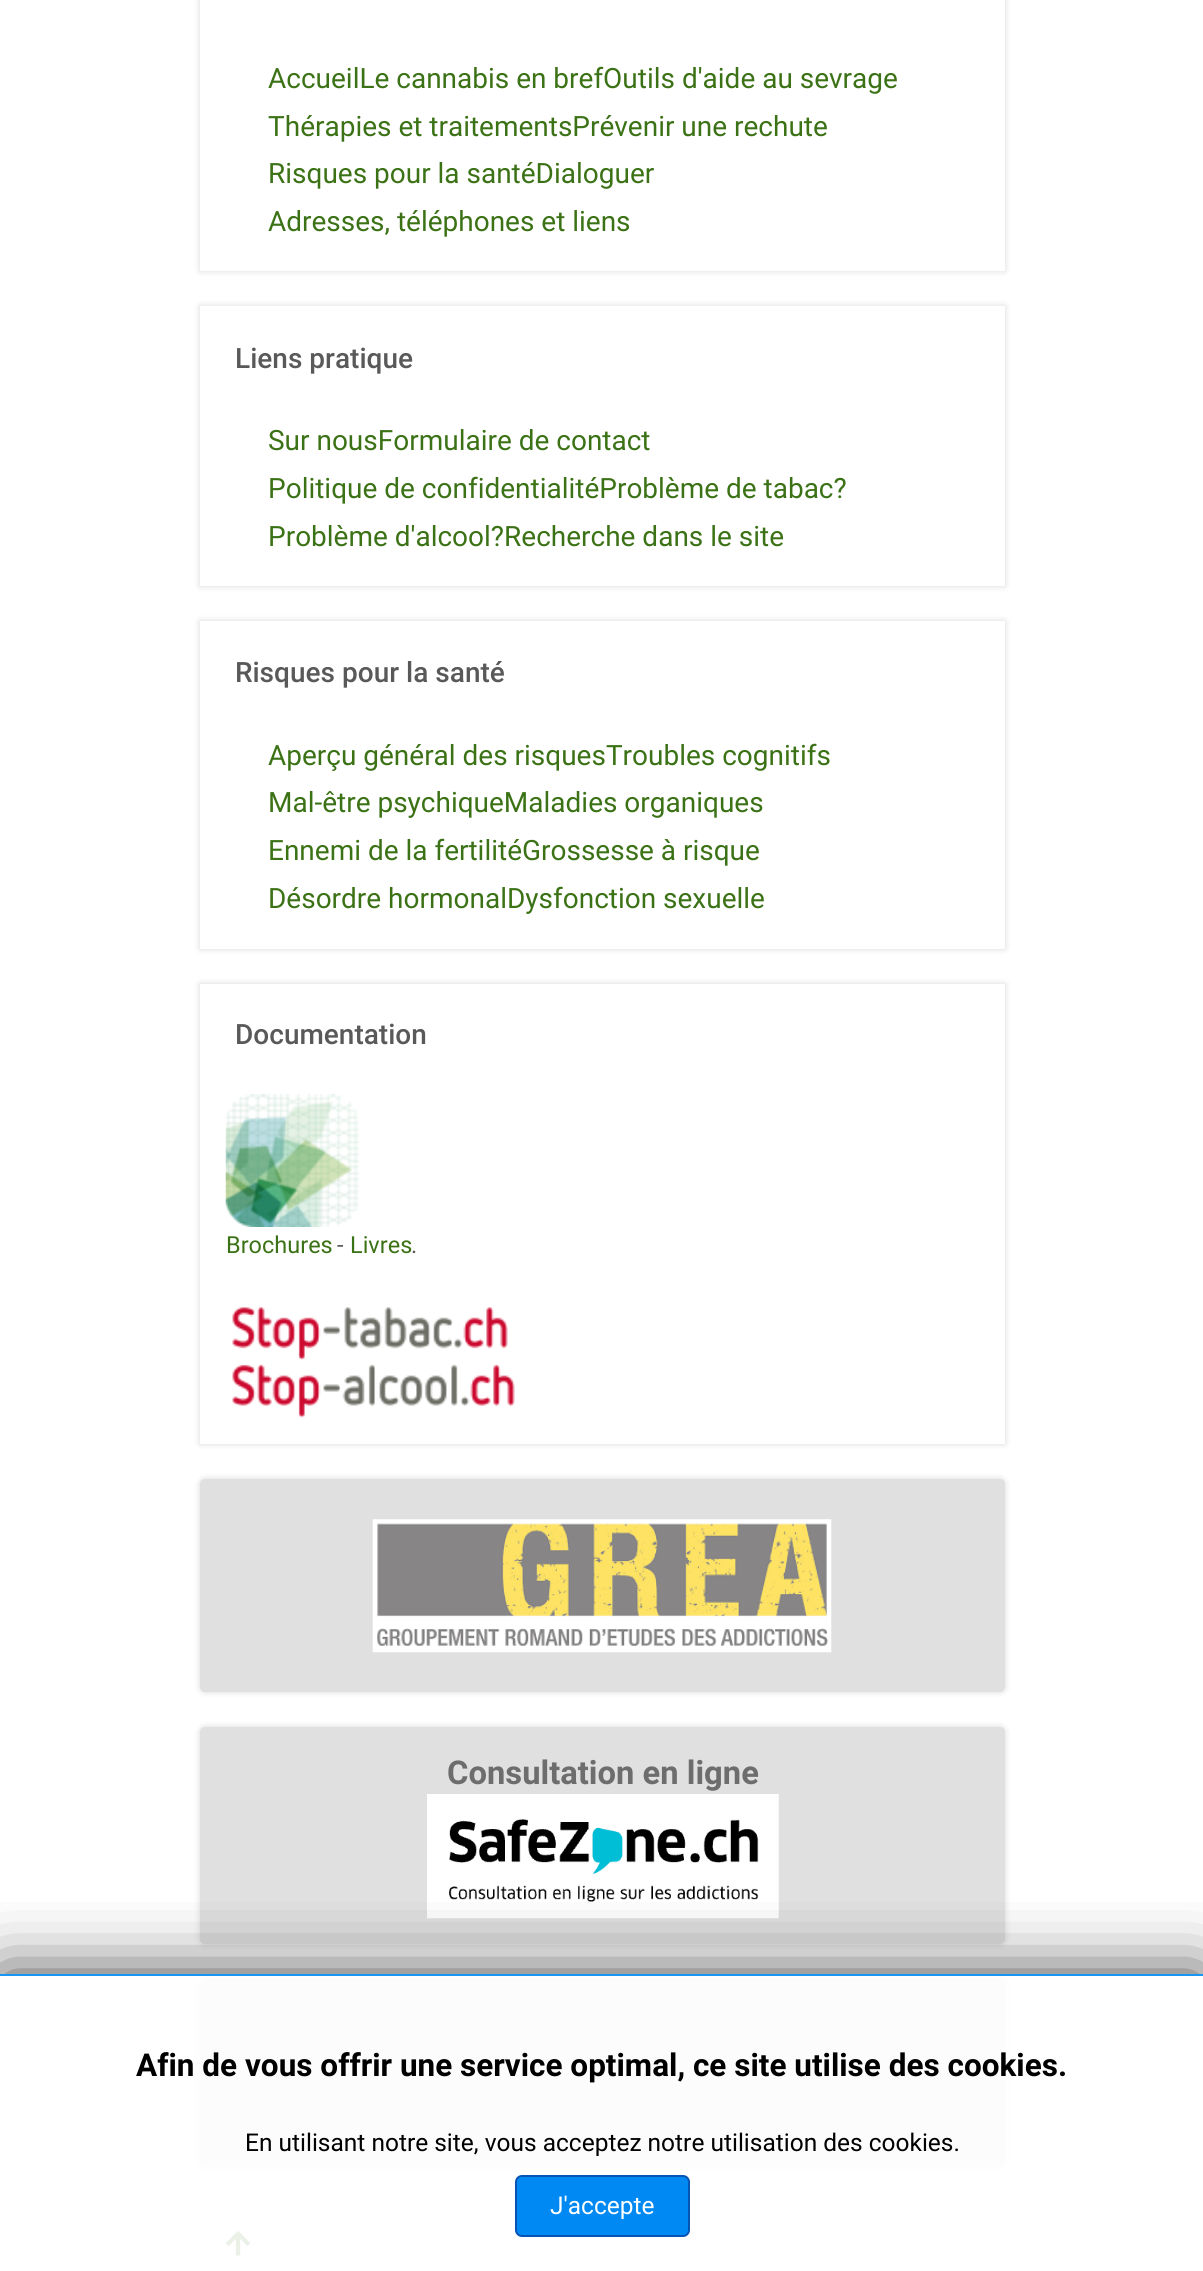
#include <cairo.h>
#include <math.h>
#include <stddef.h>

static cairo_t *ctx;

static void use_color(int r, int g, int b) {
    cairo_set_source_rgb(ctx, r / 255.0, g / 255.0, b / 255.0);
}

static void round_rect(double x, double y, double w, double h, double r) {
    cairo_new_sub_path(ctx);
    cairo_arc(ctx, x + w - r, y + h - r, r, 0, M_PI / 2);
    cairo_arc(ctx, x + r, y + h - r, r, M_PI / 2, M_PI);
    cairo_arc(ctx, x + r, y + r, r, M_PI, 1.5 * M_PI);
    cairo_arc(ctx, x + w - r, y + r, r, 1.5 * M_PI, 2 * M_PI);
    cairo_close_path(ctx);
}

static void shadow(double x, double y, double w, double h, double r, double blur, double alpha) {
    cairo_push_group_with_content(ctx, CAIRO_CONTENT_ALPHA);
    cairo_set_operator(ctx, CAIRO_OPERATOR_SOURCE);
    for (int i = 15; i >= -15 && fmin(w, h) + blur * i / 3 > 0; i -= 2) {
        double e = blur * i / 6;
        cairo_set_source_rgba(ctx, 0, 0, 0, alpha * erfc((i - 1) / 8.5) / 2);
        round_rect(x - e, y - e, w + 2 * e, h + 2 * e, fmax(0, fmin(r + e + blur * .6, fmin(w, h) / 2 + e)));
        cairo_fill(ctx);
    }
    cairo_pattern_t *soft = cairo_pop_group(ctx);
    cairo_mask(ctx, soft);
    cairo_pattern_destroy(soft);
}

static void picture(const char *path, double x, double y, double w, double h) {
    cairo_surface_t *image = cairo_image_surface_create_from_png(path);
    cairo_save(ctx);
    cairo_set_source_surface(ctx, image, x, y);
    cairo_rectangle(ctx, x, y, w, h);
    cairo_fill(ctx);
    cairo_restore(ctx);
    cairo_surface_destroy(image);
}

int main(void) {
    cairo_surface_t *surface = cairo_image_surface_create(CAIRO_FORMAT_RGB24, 1203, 2271);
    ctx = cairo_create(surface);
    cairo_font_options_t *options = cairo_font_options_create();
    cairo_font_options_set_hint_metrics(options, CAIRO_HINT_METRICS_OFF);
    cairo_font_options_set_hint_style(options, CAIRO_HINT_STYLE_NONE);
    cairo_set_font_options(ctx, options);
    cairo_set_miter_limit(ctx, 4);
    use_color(255, 255, 255);
    cairo_paint(ctx);
    use_color(0, 0, 0);
    shadow(200, -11, 805, 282, 0, 3.5, 0.15);
    use_color(255, 255, 255);
    cairo_rectangle(ctx, 200, 0, 805, 271);
    cairo_fill(ctx);
    cairo_select_font_face(ctx, "Roboto", CAIRO_FONT_SLANT_NORMAL, CAIRO_FONT_WEIGHT_NORMAL);
    cairo_set_font_size(ctx, 28);
    use_color(60, 114, 22);
    cairo_move_to(ctx, 268, 88);
    cairo_show_text(ctx, "AccueilLe cannabis en brefOutils d'aide au sevrage");
    cairo_move_to(ctx, 268, 136);
    cairo_show_text(ctx, "Thérapies et traitementsPrévenir une rechute");
    cairo_move_to(ctx, 268, 183);
    cairo_show_text(ctx, "Risques pour la santéDialoguer");
    cairo_move_to(ctx, 268, 231);
    cairo_show_text(ctx, "Adresses, téléphones et liens");
    use_color(0, 0, 0);
    shadow(200, 306, 805, 280, 0, 3.5, 0.15);
    use_color(255, 255, 255);
    cairo_rectangle(ctx, 200, 306, 805, 280);
    cairo_fill(ctx);
    cairo_select_font_face(ctx, "Roboto Medium", CAIRO_FONT_SLANT_NORMAL, CAIRO_FONT_WEIGHT_NORMAL);
    use_color(89, 89, 89);
    cairo_move_to(ctx, 235, 368);
    cairo_show_text(ctx, "Liens pratique");
    cairo_select_font_face(ctx, "Roboto", CAIRO_FONT_SLANT_NORMAL, CAIRO_FONT_WEIGHT_NORMAL);
    use_color(60, 114, 22);
    cairo_move_to(ctx, 268, 450);
    cairo_show_text(ctx, "Sur nousFormulaire de contact");
    cairo_move_to(ctx, 268, 498);
    cairo_show_text(ctx, "Politique de confidentialitéProblème de tabac?");
    cairo_move_to(ctx, 268, 546);
    cairo_show_text(ctx, "Problème d'alcool?Recherche dans le site");
    use_color(0, 0, 0);
    shadow(200, 621, 805, 328, 0, 3.5, 0.15);
    use_color(255, 255, 255);
    cairo_rectangle(ctx, 200, 621, 805, 328);
    cairo_fill(ctx);
    cairo_select_font_face(ctx, "Roboto Medium", CAIRO_FONT_SLANT_NORMAL, CAIRO_FONT_WEIGHT_NORMAL);
    use_color(89, 89, 89);
    cairo_move_to(ctx, 235, 682);
    cairo_show_text(ctx, "Risques pour la santé");
    cairo_select_font_face(ctx, "Roboto", CAIRO_FONT_SLANT_NORMAL, CAIRO_FONT_WEIGHT_NORMAL);
    use_color(60, 114, 22);
    cairo_move_to(ctx, 268, 765);
    cairo_show_text(ctx, "Aperçu général des risquesTroubles cognitifs");
    cairo_move_to(ctx, 268, 812);
    cairo_show_text(ctx, "Mal-être psychiqueMaladies organiques");
    cairo_move_to(ctx, 268, 860);
    cairo_show_text(ctx, "Ennemi de la fertilitéGrossesse à risque");
    cairo_move_to(ctx, 268, 908);
    cairo_show_text(ctx, "Désordre hormonalDysfonction sexuelle");
    use_color(0, 0, 0);
    shadow(200, 984, 805, 460, 0, 3.5, 0.15);
    use_color(255, 255, 255);
    cairo_rectangle(ctx, 200, 984, 805, 460);
    cairo_fill(ctx);
    cairo_select_font_face(ctx, "Roboto Medium", CAIRO_FONT_SLANT_NORMAL, CAIRO_FONT_WEIGHT_NORMAL);
    use_color(89, 89, 89);
    cairo_move_to(ctx, 235, 1044);
    cairo_show_text(ctx, "Documentation");
    picture("img1.png", 225, 1094, 134, 133);
    cairo_select_font_face(ctx, "Roboto", CAIRO_FONT_SLANT_NORMAL, CAIRO_FONT_WEIGHT_NORMAL);
    cairo_set_font_size(ctx, 23.5);
    use_color(60, 114, 22);
    cairo_move_to(ctx, 226, 1253);
    cairo_show_text(ctx, "Brochures");
    use_color(89, 89, 89);
    cairo_move_to(ctx, 337, 1253);
    cairo_show_text(ctx, "-");
    use_color(60, 114, 22);
    cairo_move_to(ctx, 350, 1253);
    cairo_show_text(ctx, "Livres");
    use_color(89, 89, 89);
    cairo_move_to(ctx, 411, 1253);
    cairo_show_text(ctx, ".");
    picture("img2.png", 232, 1307, 276, 53);
    picture("img3.png", 232, 1364, 283, 54);
    use_color(0, 0, 0);
    shadow(200, 1479, 805, 213, 5, 3.5, 0.15);
    use_color(224, 224, 224);
    round_rect(200, 1479, 805, 213, 5);
    cairo_fill(ctx);
    picture("img4.png", 372, 1519, 460, 134);
    use_color(0, 0, 0);
    shadow(200, 1727, 805, 217, 5, 3.5, 0.15);
    use_color(224, 224, 224);
    round_rect(200, 1727, 805, 217, 5);
    cairo_fill(ctx);
    cairo_select_font_face(ctx, "Roboto", CAIRO_FONT_SLANT_NORMAL, CAIRO_FONT_WEIGHT_BOLD);
    cairo_set_font_size(ctx, 32.75);
    use_color(109, 109, 109);
    cairo_move_to(ctx, 447, 1784);
    cairo_show_text(ctx, "Consultation en ligne");
    picture("img5.png", 427, 1794, 352, 125);
    use_color(0, 0, 0);
    shadow(200, 1979, 805, 188, 5, 3.5, 0.15);
    use_color(224, 224, 224);
    round_rect(200, 1979, 805, 188, 5);
    cairo_fill(ctx);
    picture("img6.png", 226, 2231, 24, 25);
    cairo_save(ctx);
    cairo_rectangle(ctx, 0, 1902, 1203, 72);
    cairo_clip(ctx);
    use_color(68, 68, 68);
    shadow(0, 1974, 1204, 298, 0, 35, 1);
    cairo_restore(ctx);
    cairo_set_source_rgba(ctx, 1, 1, 1, 0.9);
    cairo_rectangle(ctx, 195, 1976, 815, 280);
    cairo_fill(ctx);
    use_color(25, 149, 243);
    cairo_rectangle(ctx, 0, 1974, 1203, 2);
    cairo_fill(ctx);
    cairo_set_font_size(ctx, 31.5);
    use_color(0, 0, 0);
    cairo_move_to(ctx, 136, 2076);
    cairo_show_text(ctx, "Afin de vous offrir une service optimal, ce site utilise des cookies.");
    cairo_select_font_face(ctx, "Roboto", CAIRO_FONT_SLANT_NORMAL, CAIRO_FONT_WEIGHT_NORMAL);
    cairo_set_font_size(ctx, 24.5);
    cairo_move_to(ctx, 245, 2151);
    cairo_show_text(ctx, "En utilisant notre site, vous acceptez notre utilisation des cookies.");
    use_color(0, 137, 242);
    round_rect(516, 2176, 173, 60, 6);
    cairo_fill_preserve(ctx);
    use_color(6, 84, 179);
    cairo_stroke(ctx);
    use_color(255, 255, 255);
    cairo_move_to(ctx, 550, 2214);
    cairo_show_text(ctx, "J'accepte");
    cairo_surface_write_to_png(surface, "result.png");
    cairo_font_options_destroy(options);
    cairo_destroy(ctx);
    cairo_surface_destroy(surface);
    return 0;
}
